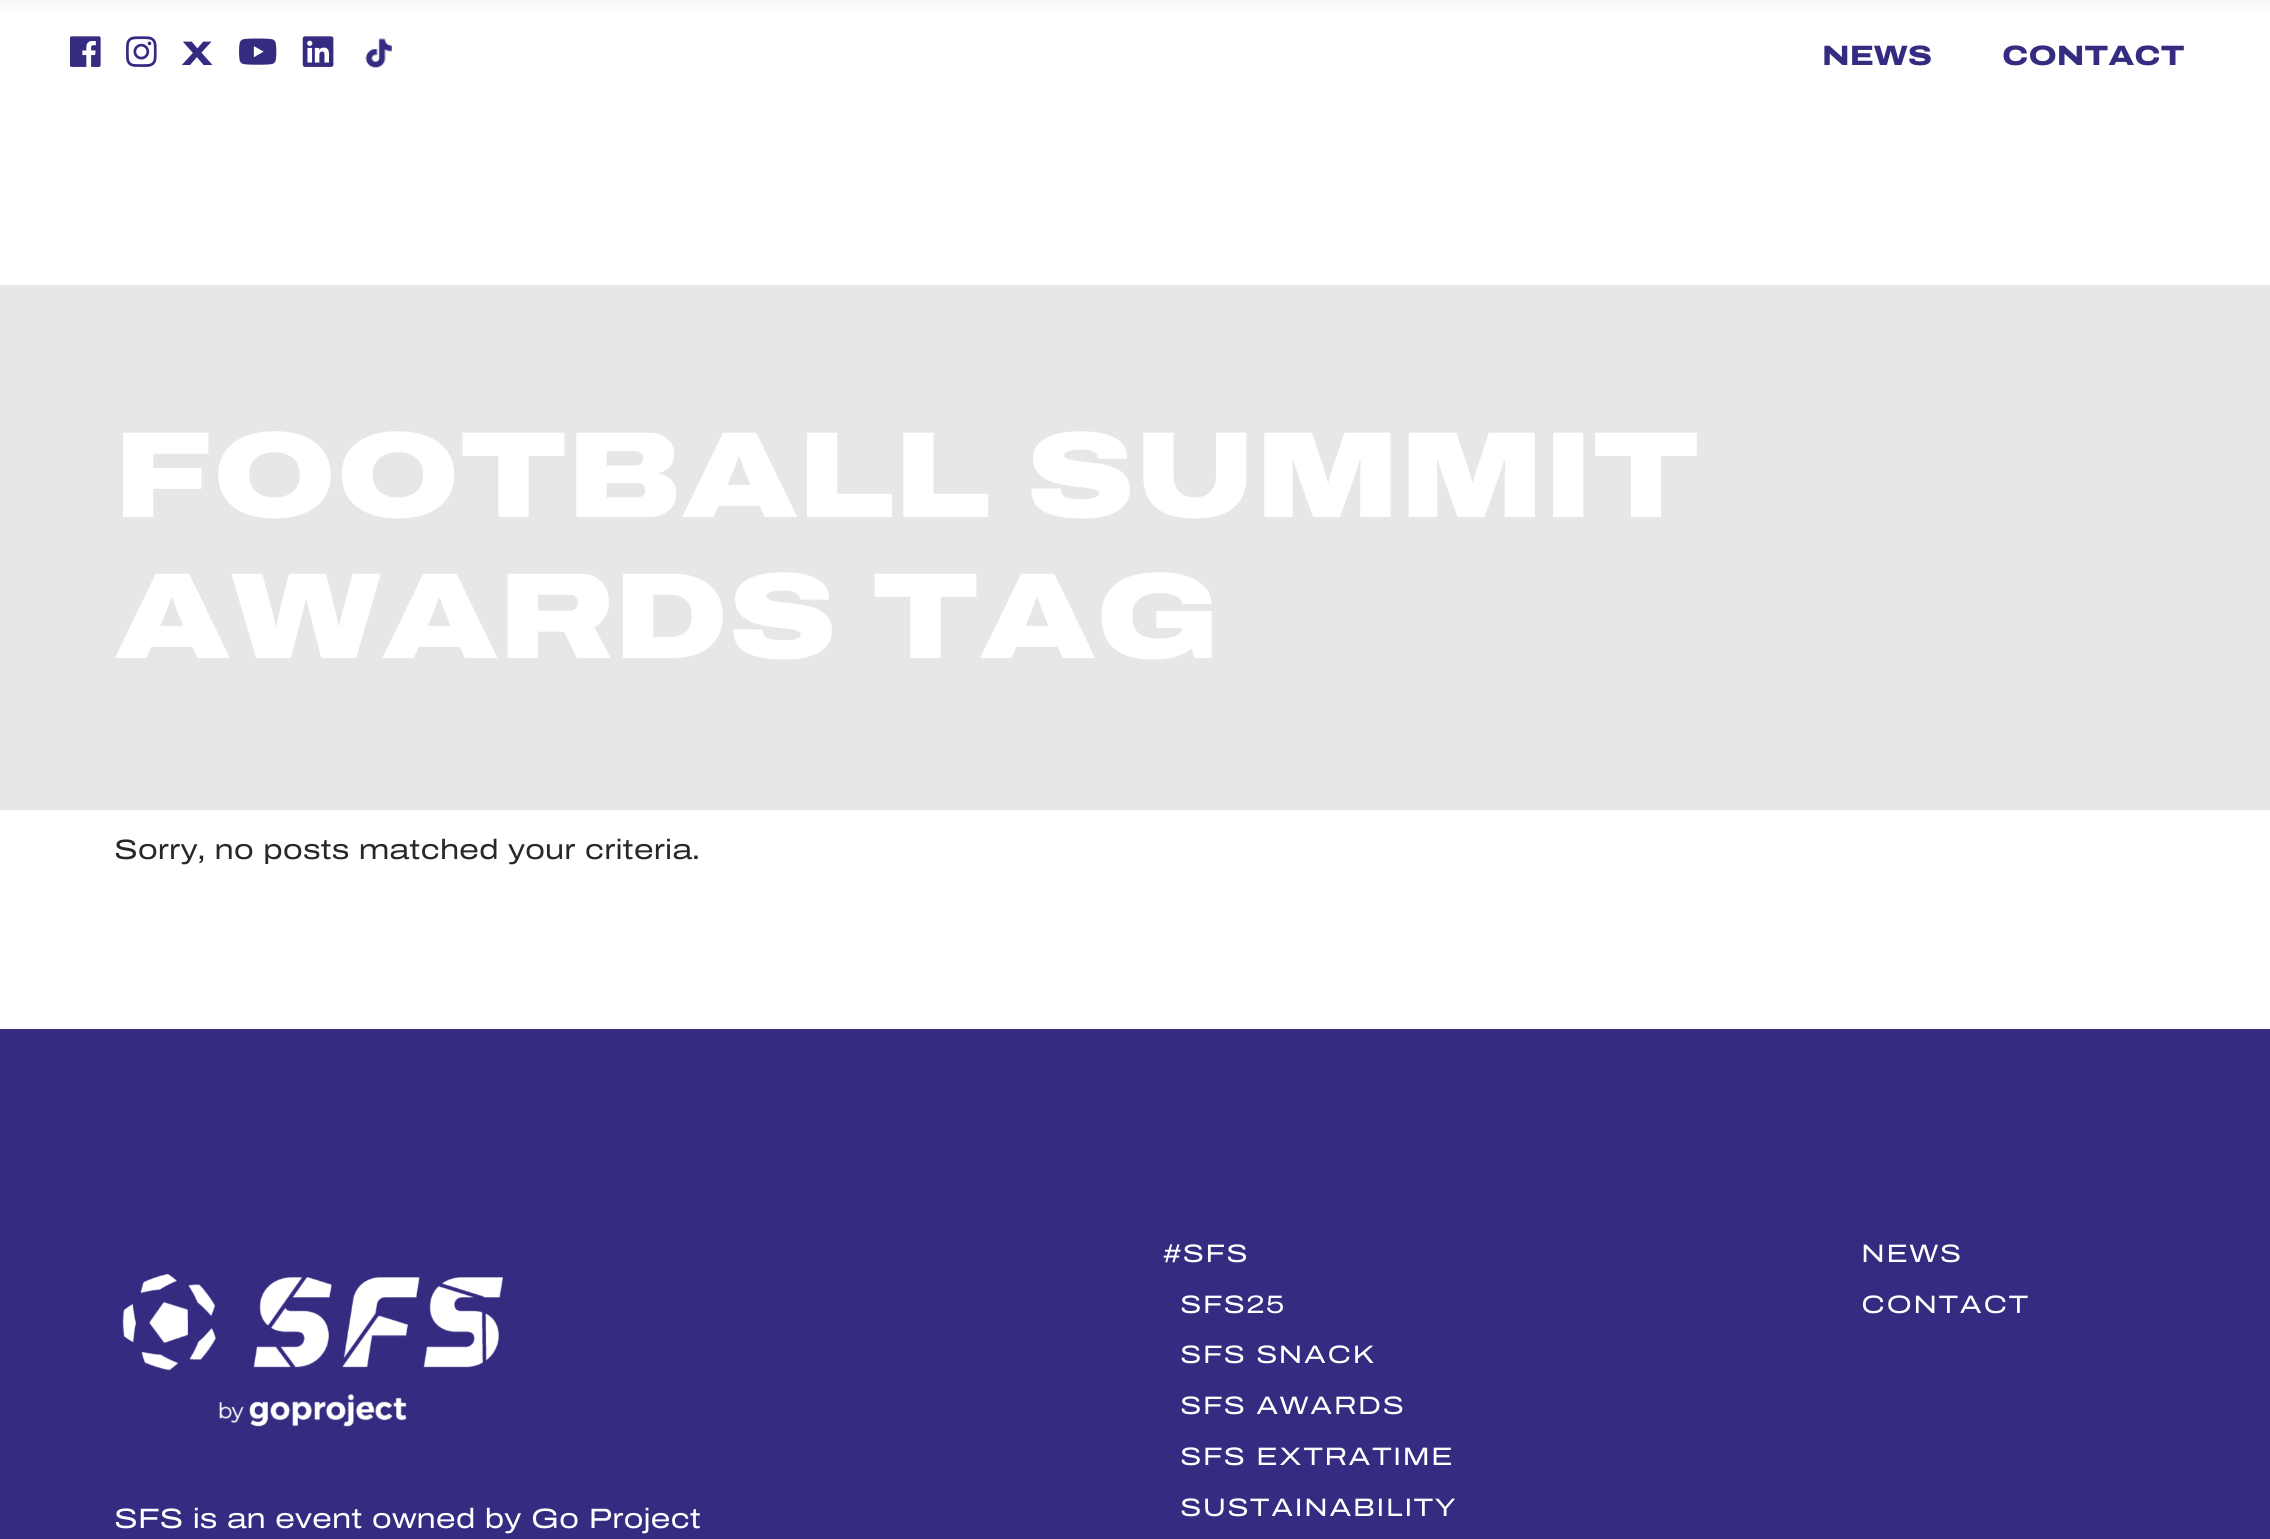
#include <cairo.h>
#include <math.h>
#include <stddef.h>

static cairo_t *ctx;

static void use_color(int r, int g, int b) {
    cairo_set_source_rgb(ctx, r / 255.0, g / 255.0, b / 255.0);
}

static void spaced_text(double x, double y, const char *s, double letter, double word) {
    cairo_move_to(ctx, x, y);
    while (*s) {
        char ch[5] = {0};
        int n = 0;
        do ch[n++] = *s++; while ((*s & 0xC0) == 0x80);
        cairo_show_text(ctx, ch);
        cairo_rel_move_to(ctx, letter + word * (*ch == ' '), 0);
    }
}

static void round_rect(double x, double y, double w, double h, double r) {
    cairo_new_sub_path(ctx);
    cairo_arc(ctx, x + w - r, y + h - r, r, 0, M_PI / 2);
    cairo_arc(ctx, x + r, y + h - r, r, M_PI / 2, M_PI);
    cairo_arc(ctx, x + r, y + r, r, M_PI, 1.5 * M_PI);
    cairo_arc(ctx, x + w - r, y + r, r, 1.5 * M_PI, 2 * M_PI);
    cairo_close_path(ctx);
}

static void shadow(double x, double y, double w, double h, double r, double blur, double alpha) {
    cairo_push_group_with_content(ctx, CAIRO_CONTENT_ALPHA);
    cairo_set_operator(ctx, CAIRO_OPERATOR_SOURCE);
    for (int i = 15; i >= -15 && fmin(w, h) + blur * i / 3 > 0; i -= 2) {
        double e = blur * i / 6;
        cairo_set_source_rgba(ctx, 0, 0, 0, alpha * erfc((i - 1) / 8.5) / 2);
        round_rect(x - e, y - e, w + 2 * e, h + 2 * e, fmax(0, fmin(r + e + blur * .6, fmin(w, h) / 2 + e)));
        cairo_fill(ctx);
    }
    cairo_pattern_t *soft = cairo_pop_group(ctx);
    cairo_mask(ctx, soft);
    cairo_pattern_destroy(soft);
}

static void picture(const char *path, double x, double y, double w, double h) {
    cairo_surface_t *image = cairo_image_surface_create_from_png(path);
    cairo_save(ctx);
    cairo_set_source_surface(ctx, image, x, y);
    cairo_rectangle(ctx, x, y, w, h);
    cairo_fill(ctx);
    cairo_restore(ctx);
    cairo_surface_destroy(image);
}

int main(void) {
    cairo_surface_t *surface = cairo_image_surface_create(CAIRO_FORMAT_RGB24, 2270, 1539);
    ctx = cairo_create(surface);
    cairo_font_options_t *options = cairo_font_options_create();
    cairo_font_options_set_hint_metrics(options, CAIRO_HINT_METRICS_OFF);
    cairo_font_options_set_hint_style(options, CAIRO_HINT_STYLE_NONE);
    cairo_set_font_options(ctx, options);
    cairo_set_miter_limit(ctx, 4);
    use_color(255, 255, 255);
    cairo_paint(ctx);
    use_color(0, 0, 0);
    shadow(0, -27, 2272, 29, 0, 9, 0.07);
    picture("img1.png", 70, 36, 31, 31);
    picture("img2.png", 126, 36, 31, 31);
    cairo_select_font_face(ctx, "Archivo ExtraBold", CAIRO_FONT_SLANT_NORMAL, CAIRO_FONT_WEIGHT_NORMAL);
    cairo_set_font_size(ctx, 34);
    use_color(53, 44, 130);
    cairo_move_to(ctx, 181, 65);
    cairo_show_text(ctx, "X");
    picture("img3.png", 239, 38, 38, 27);
    picture("img4.png", 302, 36, 32, 31);
    picture("img5.png", 365, 38, 27, 30);
    cairo_set_font_size(ctx, 28);
    cairo_move_to(ctx, 1822, 65);
    cairo_show_text(ctx, "NEWS");
    cairo_move_to(ctx, 2002, 65);
    cairo_show_text(ctx, "CONTACT");
    use_color(231, 231, 231);
    cairo_rectangle(ctx, 0, 285, 2270, 525);
    cairo_fill(ctx);
    cairo_select_font_face(ctx, "Archivo Black", CAIRO_FONT_SLANT_NORMAL, CAIRO_FONT_WEIGHT_NORMAL);
    cairo_set_font_size(ctx, 122.5);
    use_color(255, 255, 255);
    cairo_move_to(ctx, 114, 517);
    cairo_show_text(ctx, "FOOTBALL SUMMIT");
    cairo_move_to(ctx, 114, 658);
    cairo_show_text(ctx, "AWARDS TAG");
    cairo_select_font_face(ctx, "Archivo", CAIRO_FONT_SLANT_NORMAL, CAIRO_FONT_WEIGHT_NORMAL);
    cairo_set_font_size(ctx, 28);
    use_color(40, 40, 40);
    cairo_move_to(ctx, 114, 859);
    cairo_show_text(ctx, "Sorry, no posts matched your criteria.");
    use_color(53, 44, 130);
    cairo_rectangle(ctx, 0, 1029, 2270, 510);
    cairo_fill(ctx);
    cairo_set_font_size(ctx, 25.25);
    use_color(255, 255, 255);
    spaced_text(1163, 1262, "#SFS", 1.25, 0);
    spaced_text(1180, 1313, "SFS25", 1.25, 0);
    spaced_text(1180, 1363, "SFS SNACK", 1.25, 0);
    spaced_text(1180, 1414, "SFS AWARDS", 1.25, 0);
    spaced_text(1180, 1465, "SFS EXTRATIME", 1.25, 0);
    spaced_text(1180, 1516, "SUSTAINABILITY", 1.25, 0);
    spaced_text(1861, 1262, "NEWS", 1.25, 0);
    spaced_text(1861, 1313, "CONTACT", 1.25, 0);
    picture("img6.png", 122, 1273, 381, 154);
    cairo_set_font_size(ctx, 28);
    cairo_move_to(ctx, 114, 1528);
    cairo_show_text(ctx, "SFS is an event owned by Go Project");
    cairo_surface_write_to_png(surface, "result.png");
    cairo_font_options_destroy(options);
    cairo_destroy(ctx);
    cairo_surface_destroy(surface);
    return 0;
}
